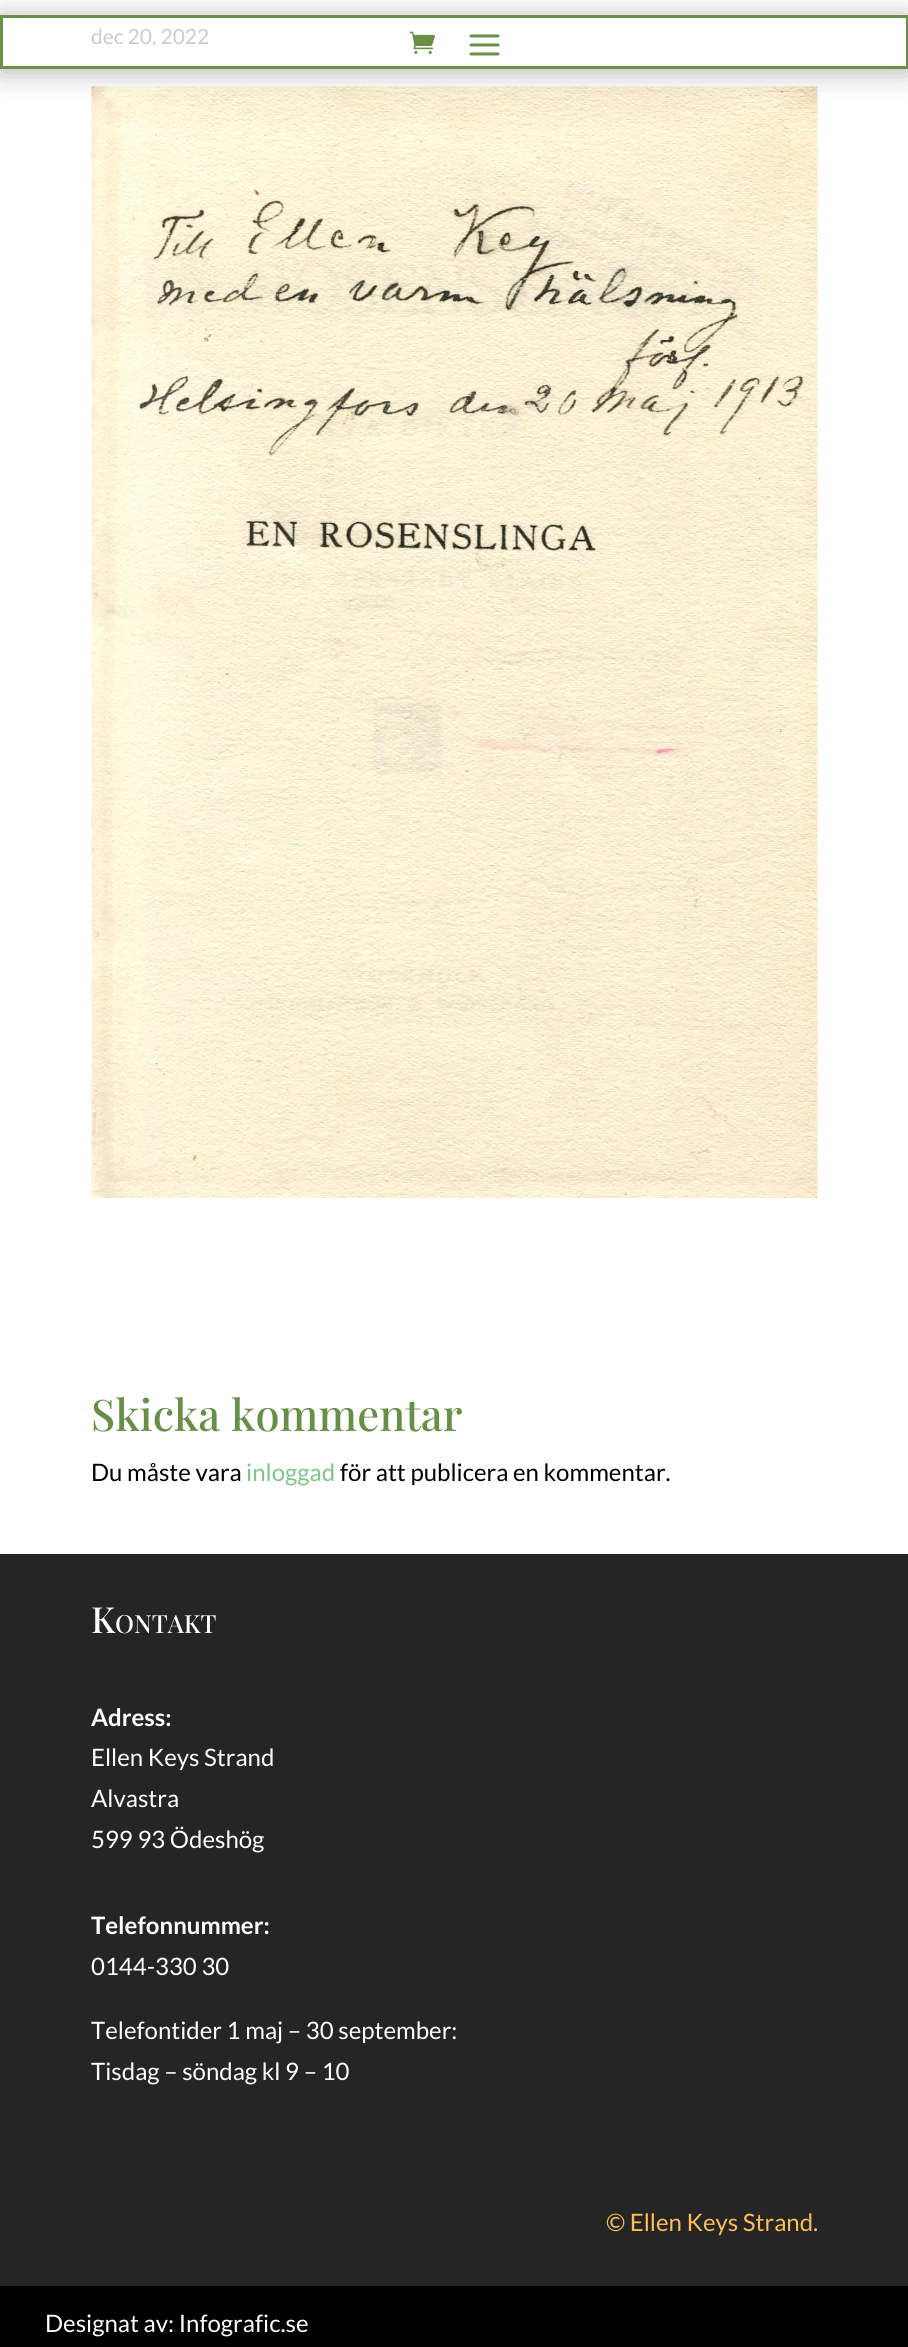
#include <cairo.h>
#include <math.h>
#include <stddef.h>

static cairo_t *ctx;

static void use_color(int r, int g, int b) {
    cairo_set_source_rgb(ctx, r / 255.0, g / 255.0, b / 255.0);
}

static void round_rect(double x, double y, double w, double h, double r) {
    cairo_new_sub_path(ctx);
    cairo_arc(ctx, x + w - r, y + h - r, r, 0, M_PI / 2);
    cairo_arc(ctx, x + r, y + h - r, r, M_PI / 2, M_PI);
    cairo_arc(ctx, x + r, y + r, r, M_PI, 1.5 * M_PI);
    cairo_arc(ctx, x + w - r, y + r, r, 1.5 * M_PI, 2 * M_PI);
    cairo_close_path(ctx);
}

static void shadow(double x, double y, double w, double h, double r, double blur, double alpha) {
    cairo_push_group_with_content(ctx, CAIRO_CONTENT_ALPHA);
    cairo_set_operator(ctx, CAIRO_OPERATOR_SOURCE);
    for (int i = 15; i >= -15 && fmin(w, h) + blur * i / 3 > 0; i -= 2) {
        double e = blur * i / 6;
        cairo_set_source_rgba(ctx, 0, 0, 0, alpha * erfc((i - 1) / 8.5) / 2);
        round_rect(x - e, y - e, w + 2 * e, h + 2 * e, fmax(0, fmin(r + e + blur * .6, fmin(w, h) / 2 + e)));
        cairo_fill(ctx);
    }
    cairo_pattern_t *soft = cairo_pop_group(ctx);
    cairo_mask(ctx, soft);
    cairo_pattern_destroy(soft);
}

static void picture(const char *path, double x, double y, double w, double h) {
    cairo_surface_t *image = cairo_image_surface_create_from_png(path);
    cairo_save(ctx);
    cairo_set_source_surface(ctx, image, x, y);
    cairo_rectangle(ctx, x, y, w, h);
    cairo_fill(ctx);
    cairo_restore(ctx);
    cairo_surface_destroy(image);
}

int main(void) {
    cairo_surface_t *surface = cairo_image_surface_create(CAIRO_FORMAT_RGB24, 908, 2347);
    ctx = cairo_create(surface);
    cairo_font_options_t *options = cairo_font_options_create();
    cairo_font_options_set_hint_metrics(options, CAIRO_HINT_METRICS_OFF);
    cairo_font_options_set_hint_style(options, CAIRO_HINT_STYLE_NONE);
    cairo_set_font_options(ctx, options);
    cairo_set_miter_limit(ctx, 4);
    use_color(255, 255, 255);
    cairo_paint(ctx);
    picture("img3.png", 91, 86, 727, 1112);
    cairo_save(ctx);
    cairo_set_fill_rule(ctx, CAIRO_FILL_RULE_EVEN_ODD);
    cairo_new_path(ctx);
    cairo_move_to(ctx, 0, 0);
    cairo_line_to(ctx, 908, 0);
    cairo_line_to(ctx, 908, 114);
    cairo_line_to(ctx, 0, 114);
    cairo_close_path(ctx);
    cairo_move_to(ctx, 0, 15);
    cairo_line_to(ctx, 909, 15);
    cairo_line_to(ctx, 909, 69);
    cairo_line_to(ctx, 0, 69);
    cairo_close_path(ctx);
    cairo_clip(ctx);
    use_color(0, 0, 0);
    shadow(0, 18, 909, 54, 0, 13.5, 0.3);
    cairo_restore(ctx);
    cairo_rectangle(ctx, 1.5, 16.5, 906, 51);
    use_color(103, 145, 71);
    cairo_set_line_width(ctx, 3);
    cairo_stroke(ctx);
    picture("img1.png", 409, 31, 26, 23);
    picture("img2.png", 469, 34, 31, 22);
    cairo_select_font_face(ctx, "Lato", CAIRO_FONT_SLANT_NORMAL, CAIRO_FONT_WEIGHT_NORMAL);
    cairo_set_font_size(ctx, 21);
    use_color(204, 204, 204);
    cairo_move_to(ctx, 91, 44);
    cairo_show_text(ctx, "dec 20, 2022");
    cairo_select_font_face(ctx, "Playfair Display Medium", CAIRO_FONT_SLANT_NORMAL, CAIRO_FONT_WEIGHT_NORMAL);
    cairo_set_font_size(ctx, 43.5);
    use_color(103, 143, 71);
    cairo_move_to(ctx, 91, 1431);
    cairo_show_text(ctx, "Skicka kommentar");
    cairo_select_font_face(ctx, "Lato", CAIRO_FONT_SLANT_NORMAL, CAIRO_FONT_WEIGHT_NORMAL);
    cairo_set_font_size(ctx, 24);
    use_color(0, 0, 0);
    cairo_move_to(ctx, 91, 1481);
    cairo_show_text(ctx, "Du måste vara");
    use_color(124, 198, 141);
    cairo_move_to(ctx, 246, 1481);
    cairo_show_text(ctx, "inloggad");
    use_color(0, 0, 0);
    cairo_move_to(ctx, 340, 1481);
    cairo_show_text(ctx, "för att publicera en kommentar.");
    use_color(37, 37, 37);
    cairo_rectangle(ctx, 0, 1554, 908, 732);
    cairo_fill(ctx);
    cairo_select_font_face(ctx, "Playfair Display Medium", CAIRO_FONT_SLANT_NORMAL, CAIRO_FONT_WEIGHT_NORMAL);
    cairo_set_font_size(ctx, 36);
    use_color(255, 255, 255);
    cairo_move_to(ctx, 91, 1633);
    cairo_show_text(ctx, "K");
    cairo_set_font_size(ctx, 25);
    cairo_move_to(ctx, 115, 1633);
    cairo_show_text(ctx, "ONTAKT");
    cairo_select_font_face(ctx, "Lato", CAIRO_FONT_SLANT_NORMAL, CAIRO_FONT_WEIGHT_BOLD);
    cairo_set_font_size(ctx, 24);
    cairo_move_to(ctx, 91, 1726);
    cairo_show_text(ctx, "Adress:");
    cairo_select_font_face(ctx, "Lato", CAIRO_FONT_SLANT_NORMAL, CAIRO_FONT_WEIGHT_NORMAL);
    cairo_move_to(ctx, 91, 1766);
    cairo_show_text(ctx, "Ellen Keys Strand");
    cairo_move_to(ctx, 91, 1807);
    cairo_show_text(ctx, "Alvastra");
    cairo_move_to(ctx, 91, 1848);
    cairo_show_text(ctx, "599 93 Ödeshög");
    cairo_select_font_face(ctx, "Lato", CAIRO_FONT_SLANT_NORMAL, CAIRO_FONT_WEIGHT_BOLD);
    cairo_move_to(ctx, 91, 1934);
    cairo_show_text(ctx, "Telefonnummer:");
    cairo_select_font_face(ctx, "Lato", CAIRO_FONT_SLANT_NORMAL, CAIRO_FONT_WEIGHT_NORMAL);
    cairo_move_to(ctx, 91, 1975);
    cairo_show_text(ctx, "0144-330 30");
    cairo_move_to(ctx, 91, 2039);
    cairo_show_text(ctx, "Telefontider 1 maj – 30 september:");
    cairo_move_to(ctx, 91, 2080);
    cairo_show_text(ctx, "Tisdag – söndag kl 9 – 10");
    use_color(253, 190, 87);
    cairo_move_to(ctx, 606, 2231);
    cairo_show_text(ctx, "© Ellen Keys Strand.");
    use_color(0, 0, 0);
    cairo_rectangle(ctx, 0, 2286, 908, 61);
    cairo_fill(ctx);
    use_color(255, 255, 255);
    cairo_move_to(ctx, 45, 2332);
    cairo_show_text(ctx, "Designat av: Infografic.se");
    cairo_surface_write_to_png(surface, "result.png");
    cairo_font_options_destroy(options);
    cairo_destroy(ctx);
    cairo_surface_destroy(surface);
    return 0;
}
